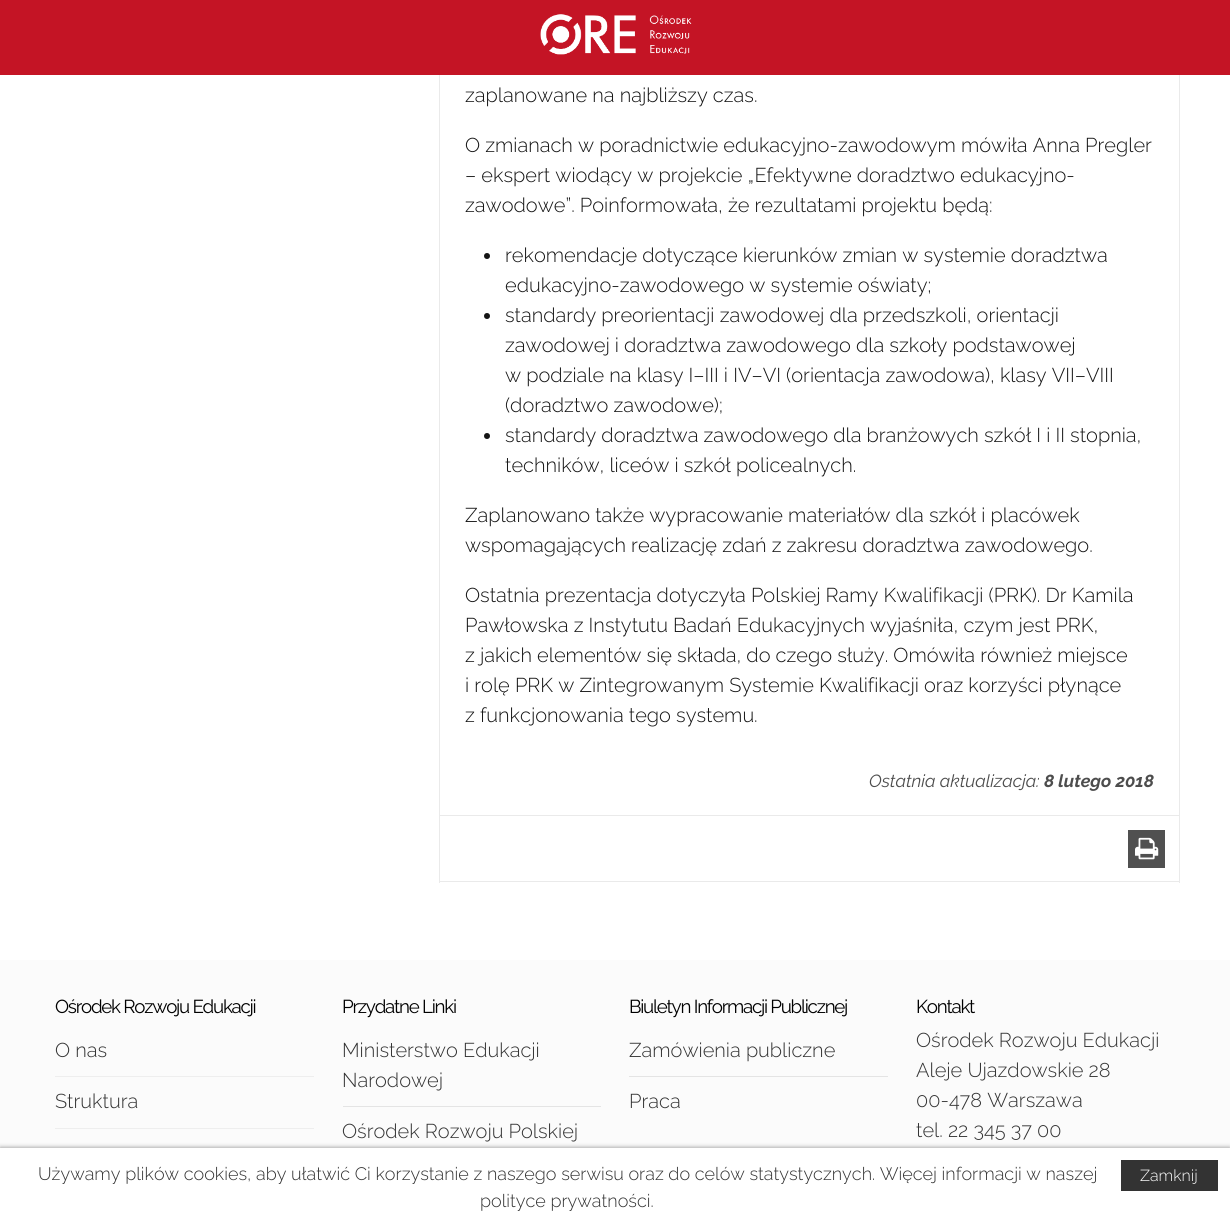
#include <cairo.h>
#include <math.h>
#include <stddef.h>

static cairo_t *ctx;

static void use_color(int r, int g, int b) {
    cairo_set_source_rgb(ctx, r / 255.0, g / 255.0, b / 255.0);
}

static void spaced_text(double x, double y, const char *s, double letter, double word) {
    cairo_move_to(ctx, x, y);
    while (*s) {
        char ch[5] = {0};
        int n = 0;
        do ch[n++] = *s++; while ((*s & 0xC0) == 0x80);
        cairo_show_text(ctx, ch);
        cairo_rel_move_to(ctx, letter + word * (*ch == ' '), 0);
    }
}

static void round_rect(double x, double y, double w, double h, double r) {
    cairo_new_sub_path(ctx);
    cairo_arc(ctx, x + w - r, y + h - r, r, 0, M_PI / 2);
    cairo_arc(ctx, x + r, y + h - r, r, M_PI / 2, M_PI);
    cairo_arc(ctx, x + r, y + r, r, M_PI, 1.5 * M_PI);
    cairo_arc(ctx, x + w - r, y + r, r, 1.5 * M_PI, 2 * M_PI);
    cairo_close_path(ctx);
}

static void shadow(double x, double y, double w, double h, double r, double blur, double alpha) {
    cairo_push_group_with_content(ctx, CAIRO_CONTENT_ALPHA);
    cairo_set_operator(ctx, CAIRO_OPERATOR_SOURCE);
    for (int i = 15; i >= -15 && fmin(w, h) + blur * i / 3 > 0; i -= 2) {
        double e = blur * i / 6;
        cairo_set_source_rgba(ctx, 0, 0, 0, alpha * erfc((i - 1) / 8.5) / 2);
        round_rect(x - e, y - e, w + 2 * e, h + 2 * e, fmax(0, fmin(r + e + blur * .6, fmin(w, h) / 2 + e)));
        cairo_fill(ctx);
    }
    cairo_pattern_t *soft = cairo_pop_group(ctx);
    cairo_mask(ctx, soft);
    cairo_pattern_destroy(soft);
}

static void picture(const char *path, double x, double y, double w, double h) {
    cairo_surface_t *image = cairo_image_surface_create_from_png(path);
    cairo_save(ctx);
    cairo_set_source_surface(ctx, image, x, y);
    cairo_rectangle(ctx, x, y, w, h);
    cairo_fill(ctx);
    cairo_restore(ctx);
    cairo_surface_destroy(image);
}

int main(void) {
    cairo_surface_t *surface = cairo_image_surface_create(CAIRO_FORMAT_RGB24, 1230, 1226);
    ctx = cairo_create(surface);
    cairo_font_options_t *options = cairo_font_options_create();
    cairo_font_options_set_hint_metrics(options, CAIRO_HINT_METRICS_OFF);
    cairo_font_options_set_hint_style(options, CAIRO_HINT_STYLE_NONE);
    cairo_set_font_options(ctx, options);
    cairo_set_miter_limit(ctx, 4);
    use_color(255, 255, 255);
    cairo_paint(ctx);
    cairo_rectangle(ctx, 439.5, -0.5, 740, 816);
    use_color(234, 234, 234);
    cairo_set_line_width(ctx, 1);
    cairo_stroke(ctx);
    use_color(196, 20, 37);
    cairo_rectangle(ctx, 0, 0, 1230, 75);
    cairo_fill(ctx);
    picture("img1.png", 540, 14, 152, 41);
    cairo_select_font_face(ctx, "Raleway Light", CAIRO_FONT_SLANT_NORMAL, CAIRO_FONT_WEIGHT_NORMAL);
    cairo_set_font_size(ctx, 20);
    use_color(21, 21, 21);
    cairo_move_to(ctx, 465, 102);
    cairo_show_text(ctx, "zaplanowane na najbliższy czas.");
    cairo_move_to(ctx, 465, 152);
    cairo_show_text(ctx, "O zmianach w poradnictwie edukacyjno-zawodowym mówiła Anna Pregler");
    cairo_move_to(ctx, 465, 182);
    cairo_show_text(ctx, "– ekspert wiodący w projekcie „Efektywne doradztwo edukacyjno-");
    cairo_move_to(ctx, 465, 212);
    cairo_show_text(ctx, "zawodowe”. Poinformowała, że rezultatami projektu będą:");
    cairo_new_path(ctx);
    cairo_arc(ctx, 487, 256, 3, 0, 2 * M_PI);
    cairo_fill(ctx);
    cairo_move_to(ctx, 505, 262);
    cairo_show_text(ctx, "rekomendacje dotyczące kierunków zmian w systemie doradztwa");
    cairo_move_to(ctx, 505, 292);
    cairo_show_text(ctx, "edukacyjno-zawodowego w systemie oświaty;");
    cairo_new_path(ctx);
    cairo_arc(ctx, 487, 316, 3, 0, 2 * M_PI);
    cairo_fill(ctx);
    cairo_move_to(ctx, 505, 322);
    cairo_show_text(ctx, "standardy preorientacji zawodowej dla przedszkoli, orientacji");
    cairo_move_to(ctx, 505, 352);
    cairo_show_text(ctx, "zawodowej i doradztwa zawodowego dla szkoły podstawowej");
    cairo_move_to(ctx, 505, 382);
    cairo_show_text(ctx, "w podziale na klasy I–III i IV–VI (orientacja zawodowa), klasy VII–VIII");
    cairo_move_to(ctx, 505, 412);
    cairo_show_text(ctx, "(doradztwo zawodowe);");
    cairo_new_path(ctx);
    cairo_arc(ctx, 487, 436, 3, 0, 2 * M_PI);
    cairo_fill(ctx);
    cairo_move_to(ctx, 505, 442);
    cairo_show_text(ctx, "standardy doradztwa zawodowego dla branżowych szkół I i II stopnia,");
    cairo_move_to(ctx, 505, 472);
    cairo_show_text(ctx, "techników, liceów i szkół policealnych.");
    cairo_move_to(ctx, 465, 522);
    cairo_show_text(ctx, "Zaplanowano także wypracowanie materiałów dla szkół i placówek");
    cairo_move_to(ctx, 465, 552);
    cairo_show_text(ctx, "wspomagających realizację zdań z zakresu doradztwa zawodowego.");
    cairo_move_to(ctx, 465, 602);
    cairo_show_text(ctx, "Ostatnia prezentacja dotyczyła Polskiej Ramy Kwalifikacji (PRK). Dr Kamila");
    cairo_move_to(ctx, 465, 632);
    cairo_show_text(ctx, "Pawłowska z Instytutu Badań Edukacyjnych wyjaśniła, czym jest PRK,");
    cairo_move_to(ctx, 465, 662);
    cairo_show_text(ctx, "z jakich elementów się składa, do czego służy. Omówiła również miejsce");
    cairo_move_to(ctx, 465, 692);
    cairo_show_text(ctx, "i rolę PRK w Zintegrowanym Systemie Kwalifikacji oraz korzyści płynące");
    cairo_move_to(ctx, 465, 722);
    cairo_show_text(ctx, "z funkcjonowania tego systemu.");
    cairo_select_font_face(ctx, "Raleway", CAIRO_FONT_SLANT_ITALIC, CAIRO_FONT_WEIGHT_NORMAL);
    cairo_set_font_size(ctx, 17.5);
    use_color(77, 77, 77);
    cairo_move_to(ctx, 869, 787);
    cairo_show_text(ctx, "Ostatnia aktualizacja:");
    cairo_select_font_face(ctx, "Raleway", CAIRO_FONT_SLANT_ITALIC, CAIRO_FONT_WEIGHT_BOLD);
    cairo_move_to(ctx, 1044, 787);
    cairo_show_text(ctx, "8 lutego 2018");
    use_color(234, 234, 234);
    cairo_rectangle(ctx, 1179, 816, 1, 67);
    cairo_fill(ctx);
    cairo_rectangle(ctx, 439, 881, 741, 1);
    cairo_fill(ctx);
    cairo_rectangle(ctx, 439, 816, 1, 67);
    cairo_fill(ctx);
    use_color(80, 80, 80);
    cairo_rectangle(ctx, 1128, 830, 37, 38);
    cairo_fill(ctx);
    picture("img2.png", 1135, 837, 24, 23);
    use_color(251, 251, 251);
    cairo_rectangle(ctx, 0, 960, 1230, 188);
    cairo_fill(ctx);
    cairo_select_font_face(ctx, "Raleway", CAIRO_FONT_SLANT_NORMAL, CAIRO_FONT_WEIGHT_NORMAL);
    cairo_set_font_size(ctx, 18.75);
    use_color(0, 0, 0);
    spaced_text(55, 1013, "Ośrodek Rozwoju Edukacji", -1.25, 0);
    use_color(238, 238, 238);
    cairo_rectangle(ctx, 55, 1076, 259, 1);
    cairo_fill(ctx);
    cairo_select_font_face(ctx, "Raleway Light", CAIRO_FONT_SLANT_NORMAL, CAIRO_FONT_WEIGHT_NORMAL);
    cairo_set_font_size(ctx, 20);
    use_color(51, 51, 51);
    cairo_move_to(ctx, 55, 1057);
    cairo_show_text(ctx, "O nas");
    use_color(238, 238, 238);
    cairo_rectangle(ctx, 55, 1128, 259, 1);
    cairo_fill(ctx);
    use_color(51, 51, 51);
    cairo_move_to(ctx, 55, 1108);
    cairo_show_text(ctx, "Struktura");
    cairo_select_font_face(ctx, "Raleway", CAIRO_FONT_SLANT_NORMAL, CAIRO_FONT_WEIGHT_NORMAL);
    cairo_set_font_size(ctx, 18.75);
    use_color(0, 0, 0);
    spaced_text(342, 1013, "Przydatne Linki", -1.25, 0);
    use_color(228, 228, 228);
    cairo_rectangle(ctx, 343, 1106, 258, 1);
    cairo_fill(ctx);
    cairo_select_font_face(ctx, "Raleway Light", CAIRO_FONT_SLANT_NORMAL, CAIRO_FONT_WEIGHT_NORMAL);
    cairo_set_font_size(ctx, 20);
    use_color(51, 51, 51);
    cairo_move_to(ctx, 342, 1057);
    cairo_show_text(ctx, "Ministerstwo Edukacji");
    cairo_move_to(ctx, 342, 1087);
    cairo_show_text(ctx, "Narodowej");
    cairo_move_to(ctx, 342, 1138);
    cairo_show_text(ctx, "Ośrodek Rozwoju Polskiej");
    cairo_select_font_face(ctx, "Raleway", CAIRO_FONT_SLANT_NORMAL, CAIRO_FONT_WEIGHT_NORMAL);
    cairo_set_font_size(ctx, 18.75);
    use_color(0, 0, 0);
    spaced_text(629, 1013, "Biuletyn Informacji Publicznej", -1.25, 0);
    use_color(228, 228, 228);
    cairo_rectangle(ctx, 629, 1076, 259, 1);
    cairo_fill(ctx);
    cairo_select_font_face(ctx, "Raleway Light", CAIRO_FONT_SLANT_NORMAL, CAIRO_FONT_WEIGHT_NORMAL);
    cairo_set_font_size(ctx, 20);
    use_color(51, 51, 51);
    cairo_move_to(ctx, 629, 1057);
    cairo_show_text(ctx, "Zamówienia publiczne");
    cairo_move_to(ctx, 629, 1108);
    cairo_show_text(ctx, "Praca");
    cairo_select_font_face(ctx, "Raleway", CAIRO_FONT_SLANT_NORMAL, CAIRO_FONT_WEIGHT_NORMAL);
    cairo_set_font_size(ctx, 18.75);
    use_color(0, 0, 0);
    spaced_text(916, 1013, "Kontakt", -1.25, 0);
    cairo_select_font_face(ctx, "Raleway Light", CAIRO_FONT_SLANT_NORMAL, CAIRO_FONT_WEIGHT_NORMAL);
    cairo_set_font_size(ctx, 20);
    use_color(51, 51, 51);
    cairo_move_to(ctx, 916, 1047);
    cairo_show_text(ctx, "Ośrodek Rozwoju Edukacji");
    cairo_move_to(ctx, 916, 1077);
    cairo_show_text(ctx, "Aleje Ujazdowskie 28");
    cairo_move_to(ctx, 916, 1107);
    cairo_show_text(ctx, "00-478 Warszawa");
    cairo_move_to(ctx, 916, 1137);
    cairo_show_text(ctx, "tel. 22 345 37 00");
    use_color(136, 136, 136);
    shadow(0, 1148, 1230, 78, 0, 2.5, 1);
    use_color(255, 255, 255);
    cairo_rectangle(ctx, 0, 1148, 1230, 78);
    cairo_fill(ctx);
    cairo_set_font_size(ctx, 18);
    use_color(51, 51, 51);
    cairo_move_to(ctx, 38, 1180);
    cairo_show_text(ctx, "Używamy plików cookies, aby ułatwić Ci korzystanie z naszego serwisu oraz do celów statystycznych. Więcej informacji w naszej");
    cairo_rectangle(ctx, 1121, 1160, 97, 31);
    cairo_fill(ctx);
    cairo_set_font_size(ctx, 16);
    use_color(255, 255, 255);
    cairo_move_to(ctx, 1140, 1181);
    cairo_show_text(ctx, "Zamknij");
    cairo_set_font_size(ctx, 18);
    use_color(51, 51, 51);
    cairo_move_to(ctx, 480, 1207);
    cairo_show_text(ctx, "polityce prywatności.");
    cairo_surface_write_to_png(surface, "result.png");
    cairo_font_options_destroy(options);
    cairo_destroy(ctx);
    cairo_surface_destroy(surface);
    return 0;
}
